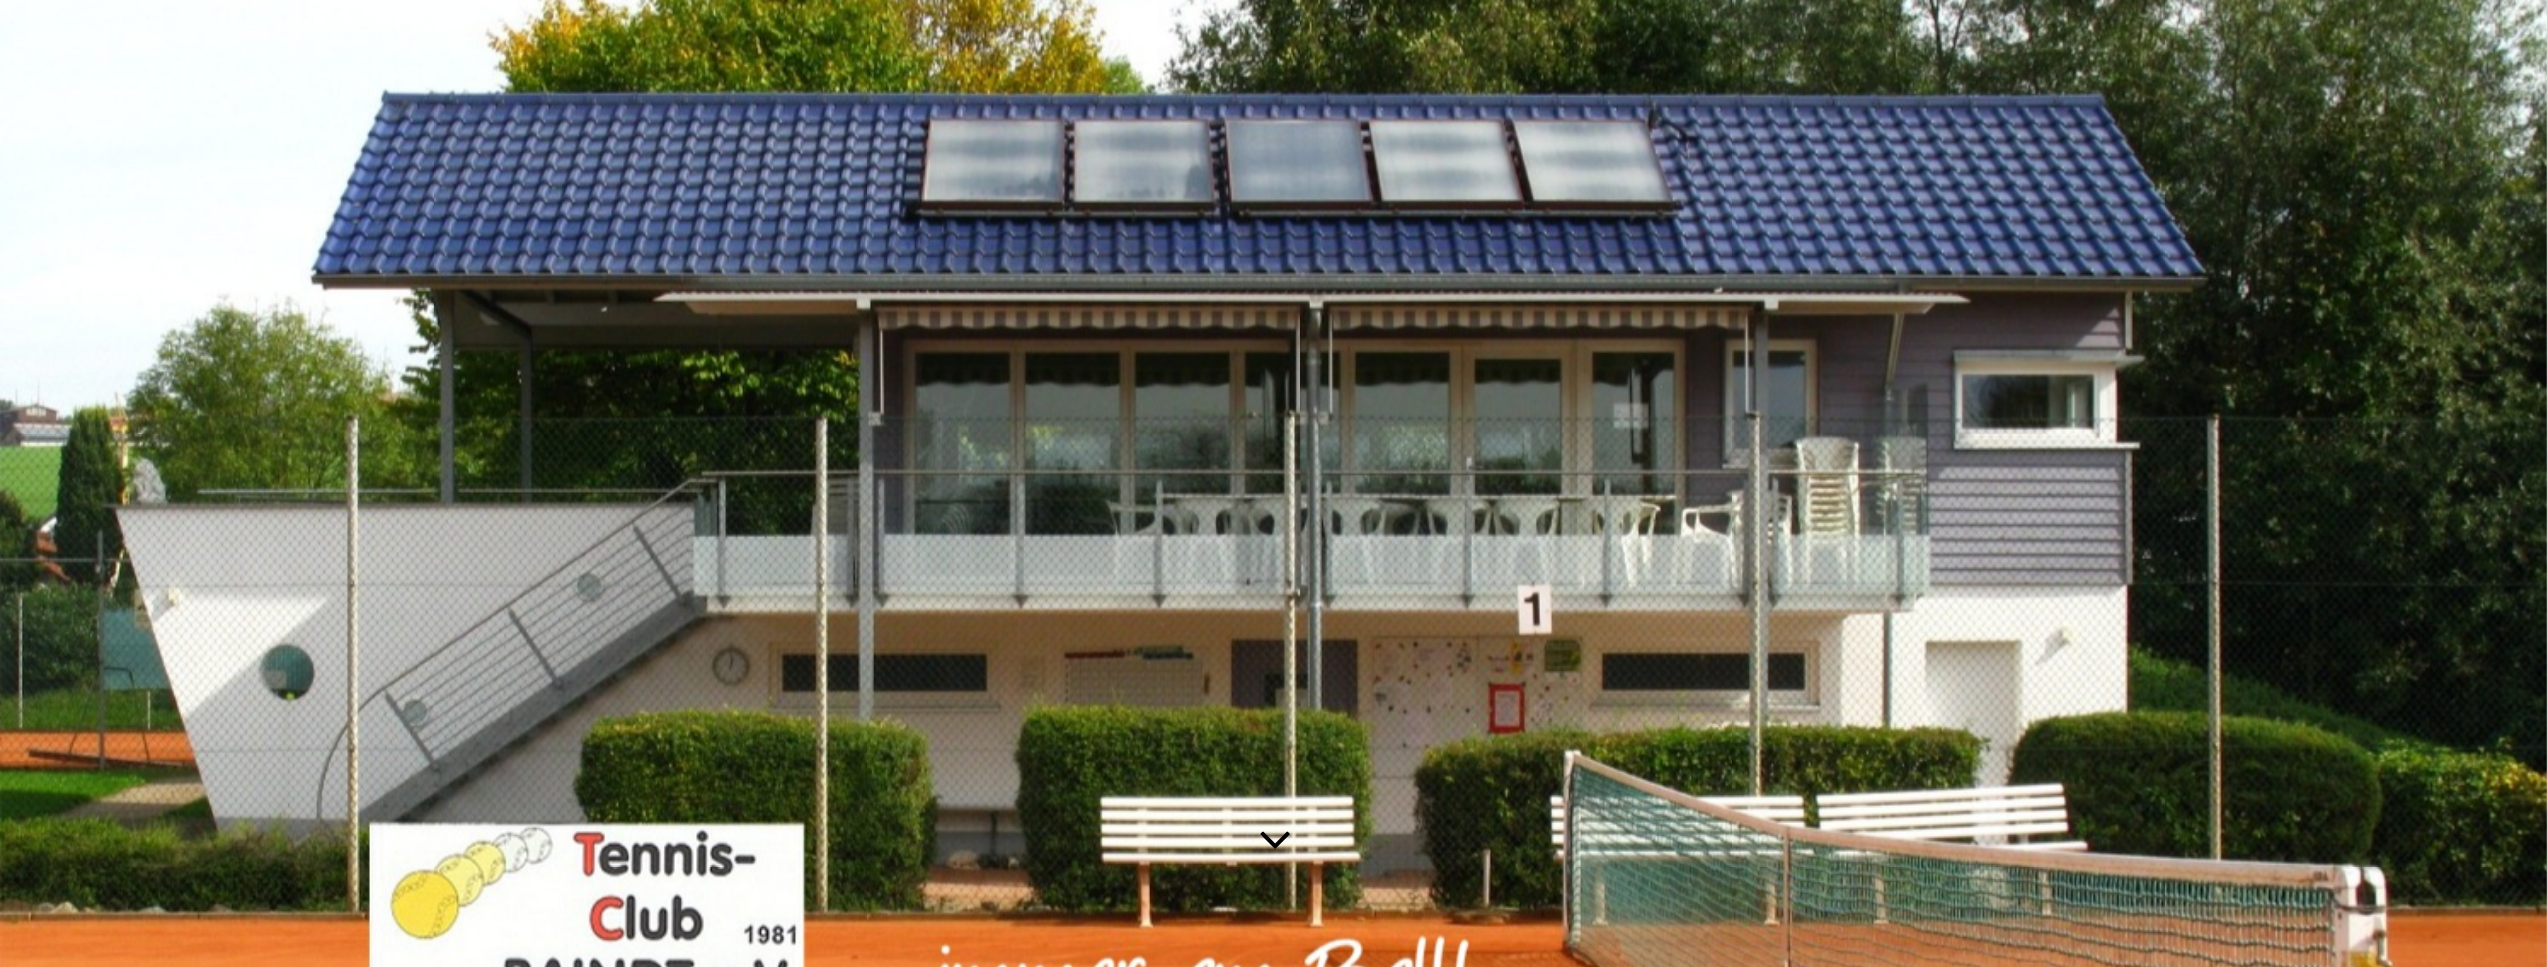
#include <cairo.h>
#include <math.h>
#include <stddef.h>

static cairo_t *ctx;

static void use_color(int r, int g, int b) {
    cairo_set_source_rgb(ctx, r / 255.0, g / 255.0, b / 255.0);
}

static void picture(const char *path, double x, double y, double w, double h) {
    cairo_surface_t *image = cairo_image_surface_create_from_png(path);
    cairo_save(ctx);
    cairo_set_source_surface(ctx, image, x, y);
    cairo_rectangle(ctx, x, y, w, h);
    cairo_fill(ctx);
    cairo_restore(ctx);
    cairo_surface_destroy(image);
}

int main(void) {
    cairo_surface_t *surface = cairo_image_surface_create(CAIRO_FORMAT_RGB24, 2547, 967);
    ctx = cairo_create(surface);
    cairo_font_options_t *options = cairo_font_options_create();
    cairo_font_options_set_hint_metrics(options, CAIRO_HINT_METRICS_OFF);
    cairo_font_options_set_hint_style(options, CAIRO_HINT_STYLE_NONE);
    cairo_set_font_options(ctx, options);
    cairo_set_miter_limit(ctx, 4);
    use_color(255, 255, 255);
    cairo_paint(ctx);
    picture("img1.png", 0, 0, 2547, 967);
    picture("img2.png", 1260, 831, 30, 18);
    cairo_surface_write_to_png(surface, "result.png");
    cairo_font_options_destroy(options);
    cairo_destroy(ctx);
    cairo_surface_destroy(surface);
    return 0;
}
